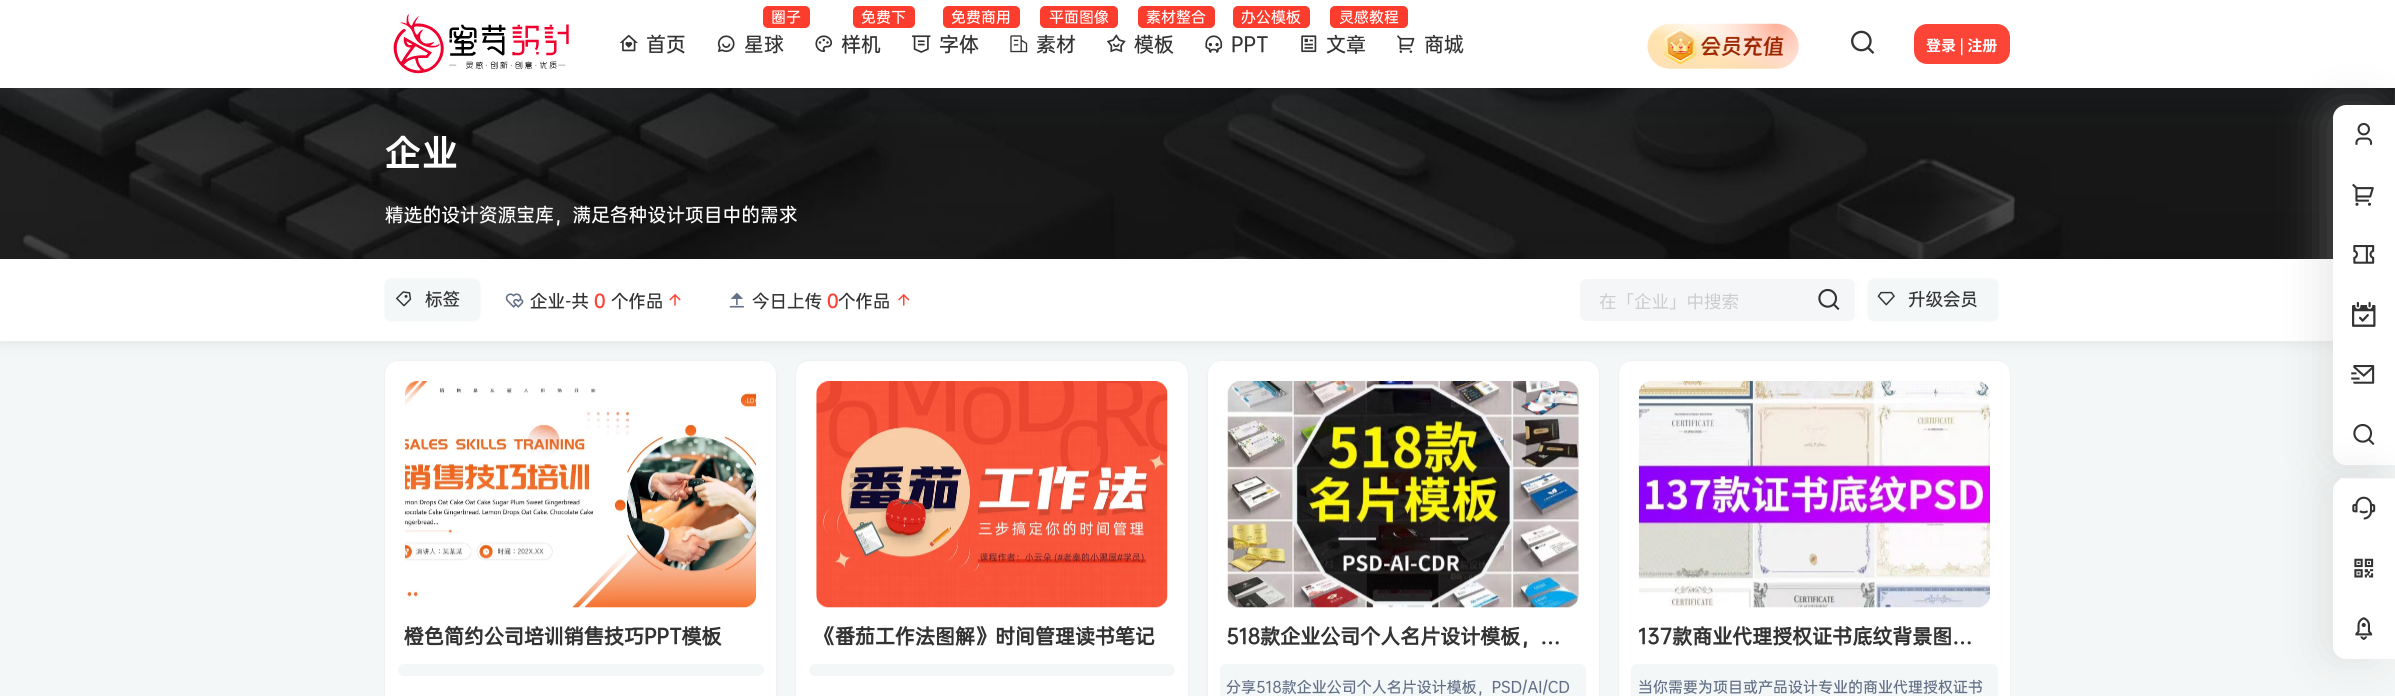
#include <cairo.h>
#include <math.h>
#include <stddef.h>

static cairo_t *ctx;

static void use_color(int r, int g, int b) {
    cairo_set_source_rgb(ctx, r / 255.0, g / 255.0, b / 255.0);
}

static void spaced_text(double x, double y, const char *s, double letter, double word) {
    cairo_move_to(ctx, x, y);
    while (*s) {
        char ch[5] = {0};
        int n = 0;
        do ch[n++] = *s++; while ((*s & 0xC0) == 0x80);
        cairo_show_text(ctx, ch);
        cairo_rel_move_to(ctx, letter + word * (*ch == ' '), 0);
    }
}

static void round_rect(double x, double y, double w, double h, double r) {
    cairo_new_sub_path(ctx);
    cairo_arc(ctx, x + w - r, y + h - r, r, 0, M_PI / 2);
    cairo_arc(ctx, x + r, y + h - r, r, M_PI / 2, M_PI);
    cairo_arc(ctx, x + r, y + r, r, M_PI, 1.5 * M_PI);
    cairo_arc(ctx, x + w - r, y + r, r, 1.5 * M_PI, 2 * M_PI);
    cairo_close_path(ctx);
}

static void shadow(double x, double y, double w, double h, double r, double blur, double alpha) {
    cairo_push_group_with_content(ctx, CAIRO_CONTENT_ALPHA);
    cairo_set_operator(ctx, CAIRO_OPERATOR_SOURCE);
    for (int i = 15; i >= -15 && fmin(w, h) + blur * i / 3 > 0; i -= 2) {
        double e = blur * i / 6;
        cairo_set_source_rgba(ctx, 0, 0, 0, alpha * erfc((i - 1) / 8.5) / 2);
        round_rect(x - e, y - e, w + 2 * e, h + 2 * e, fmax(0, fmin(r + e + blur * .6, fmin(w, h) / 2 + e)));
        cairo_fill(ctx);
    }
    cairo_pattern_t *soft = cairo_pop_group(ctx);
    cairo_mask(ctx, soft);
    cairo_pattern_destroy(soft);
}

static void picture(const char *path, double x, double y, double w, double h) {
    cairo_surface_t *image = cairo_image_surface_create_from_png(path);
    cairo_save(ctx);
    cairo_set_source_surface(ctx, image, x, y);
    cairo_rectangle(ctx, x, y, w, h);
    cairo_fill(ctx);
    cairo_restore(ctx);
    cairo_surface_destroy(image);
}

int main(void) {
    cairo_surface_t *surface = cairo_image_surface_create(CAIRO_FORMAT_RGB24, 2395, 696);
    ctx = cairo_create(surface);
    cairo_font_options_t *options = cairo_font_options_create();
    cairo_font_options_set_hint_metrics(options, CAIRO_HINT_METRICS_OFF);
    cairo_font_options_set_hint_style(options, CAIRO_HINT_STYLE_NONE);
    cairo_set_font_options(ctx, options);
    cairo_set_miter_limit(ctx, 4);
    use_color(244, 247, 247);
    cairo_paint(ctx);
    use_color(51, 51, 51);
    shadow(0, 261, 2395, 83, 0, 7.5, 0.08);
    picture("img13.png", 0, 88, 2395, 171);
    use_color(17, 58, 93);
    shadow(0, 6, 2395, 88, 0, 25, 0.1);
    use_color(255, 255, 255);
    cairo_rectangle(ctx, 0, 0, 2395, 88);
    cairo_fill(ctx);
    picture("img1.png", 393, 14, 176, 60);
    picture("img2.png", 619, 34, 19, 18);
    cairo_select_font_face(ctx, "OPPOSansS", CAIRO_FONT_SLANT_NORMAL, CAIRO_FONT_WEIGHT_NORMAL);
    cairo_set_font_size(ctx, 20);
    use_color(51, 51, 51);
    cairo_move_to(ctx, 646, 51);
    cairo_show_text(ctx, "首页");
    use_color(252, 60, 45);
    round_rect(763, 6, 47, 22, 5);
    cairo_fill(ctx);
    cairo_set_font_size(ctx, 15);
    use_color(255, 255, 255);
    cairo_move_to(ctx, 771, 22);
    cairo_show_text(ctx, "圈子");
    picture("img3.png", 717, 35, 18, 18);
    cairo_set_font_size(ctx, 20);
    use_color(51, 51, 51);
    cairo_move_to(ctx, 744, 51);
    cairo_show_text(ctx, "星球");
    use_color(252, 60, 45);
    round_rect(853, 6, 62, 22, 5);
    cairo_fill(ctx);
    cairo_set_font_size(ctx, 15);
    use_color(255, 255, 255);
    cairo_move_to(ctx, 861, 22);
    cairo_show_text(ctx, "免费下");
    picture("img4.png", 815, 35, 18, 18);
    cairo_set_font_size(ctx, 20);
    use_color(51, 51, 51);
    cairo_move_to(ctx, 841, 51);
    cairo_show_text(ctx, "样机");
    use_color(252, 60, 45);
    round_rect(943, 6, 77, 22, 5);
    cairo_fill(ctx);
    cairo_set_font_size(ctx, 15);
    use_color(255, 255, 255);
    cairo_move_to(ctx, 951, 22);
    cairo_show_text(ctx, "免费商用");
    picture("img5.png", 912, 35, 19, 18);
    cairo_set_font_size(ctx, 20);
    use_color(51, 51, 51);
    cairo_move_to(ctx, 939, 51);
    cairo_show_text(ctx, "字体");
    use_color(252, 60, 45);
    round_rect(1040, 6, 78, 22, 5);
    cairo_fill(ctx);
    cairo_set_font_size(ctx, 15);
    use_color(255, 255, 255);
    cairo_move_to(ctx, 1049, 22);
    cairo_show_text(ctx, "平面图像");
    picture("img6.png", 1010, 35, 18, 18);
    cairo_set_font_size(ctx, 20);
    use_color(51, 51, 51);
    cairo_move_to(ctx, 1036, 51);
    cairo_show_text(ctx, "素材");
    use_color(252, 60, 45);
    round_rect(1138, 6, 77, 22, 5);
    cairo_fill(ctx);
    cairo_set_font_size(ctx, 15);
    use_color(255, 255, 255);
    cairo_move_to(ctx, 1146, 22);
    cairo_show_text(ctx, "素材整合");
    picture("img7.png", 1106, 34, 20, 19);
    cairo_set_font_size(ctx, 20);
    use_color(51, 51, 51);
    cairo_move_to(ctx, 1134, 51);
    cairo_show_text(ctx, "模板");
    use_color(252, 60, 45);
    round_rect(1233, 6, 77, 22, 5);
    cairo_fill(ctx);
    cairo_set_font_size(ctx, 15);
    use_color(255, 255, 255);
    cairo_move_to(ctx, 1241, 22);
    cairo_show_text(ctx, "办公模板");
    picture("img8.png", 1205, 35, 18, 18);
    cairo_set_font_size(ctx, 20);
    use_color(51, 51, 51);
    cairo_move_to(ctx, 1231, 51);
    cairo_show_text(ctx, "PPT");
    use_color(252, 60, 45);
    round_rect(1330, 6, 78, 22, 5);
    cairo_fill(ctx);
    cairo_set_font_size(ctx, 15);
    use_color(255, 255, 255);
    cairo_move_to(ctx, 1339, 22);
    cairo_show_text(ctx, "灵感教程");
    picture("img9.png", 1301, 35, 16, 18);
    cairo_set_font_size(ctx, 20);
    use_color(51, 51, 51);
    cairo_move_to(ctx, 1326, 51);
    cairo_show_text(ctx, "文章");
    picture("img10.png", 1397, 35, 18, 18);
    cairo_move_to(ctx, 1424, 51);
    cairo_show_text(ctx, "商城");
    picture("img11.png", 1647, 23, 152, 46);
    picture("img12.png", 1851, 30, 24, 24);
    use_color(252, 68, 55);
    round_rect(1914, 24, 96, 40, 13);
    cairo_fill(ctx);
    cairo_select_font_face(ctx, "Noto Sans CJK SC", CAIRO_FONT_SLANT_NORMAL, CAIRO_FONT_WEIGHT_BOLD);
    cairo_set_font_size(ctx, 15);
    use_color(255, 255, 255);
    cairo_move_to(ctx, 1926, 51);
    cairo_show_text(ctx, "登录 | 注册");
    cairo_select_font_face(ctx, "OPPOSansS", CAIRO_FONT_SLANT_NORMAL, CAIRO_FONT_WEIGHT_BOLD);
    cairo_set_font_size(ctx, 35);
    spaced_text(385, 165, "企业", 2, 0);
    cairo_select_font_face(ctx, "OPPOSansS", CAIRO_FONT_SLANT_NORMAL, CAIRO_FONT_WEIGHT_NORMAL);
    cairo_set_font_size(ctx, 18.75);
    cairo_move_to(ctx, 385, 221);
    cairo_show_text(ctx, "精选的设计资源宝库，满足各种设计项目中的需求");
    cairo_rectangle(ctx, 0, 259, 2333, 82);
    cairo_fill(ctx);
    use_color(98, 124, 153);
    shadow(385, 279, 95, 42, 6, 1, 0.1);
    use_color(244, 247, 247);
    round_rect(385, 279, 95, 42, 6);
    cairo_fill(ctx);
    picture("img14.png", 396, 291, 16, 16);
    cairo_set_font_size(ctx, 17.5);
    use_color(51, 51, 51);
    cairo_move_to(ctx, 425, 305);
    cairo_show_text(ctx, "标签");
    picture("img15.png", 505, 293, 19, 15);
    cairo_move_to(ctx, 530, 307);
    cairo_show_text(ctx, "企业-共");
    cairo_select_font_face(ctx, "OPPOSansS", CAIRO_FONT_SLANT_NORMAL, CAIRO_FONT_WEIGHT_BOLD);
    use_color(252, 68, 55);
    cairo_move_to(ctx, 594, 307);
    cairo_show_text(ctx, "0");
    cairo_select_font_face(ctx, "OPPOSansS", CAIRO_FONT_SLANT_NORMAL, CAIRO_FONT_WEIGHT_NORMAL);
    use_color(51, 51, 51);
    cairo_move_to(ctx, 611, 307);
    cairo_show_text(ctx, "个作品");
    picture("img16.png", 669, 294, 12, 12);
    picture("img17.png", 729, 292, 15, 16);
    cairo_move_to(ctx, 752, 307);
    cairo_show_text(ctx, "今日上传");
    cairo_select_font_face(ctx, "OPPOSansS", CAIRO_FONT_SLANT_NORMAL, CAIRO_FONT_WEIGHT_BOLD);
    use_color(252, 68, 55);
    cairo_move_to(ctx, 827, 307);
    cairo_show_text(ctx, "0");
    cairo_select_font_face(ctx, "OPPOSansS", CAIRO_FONT_SLANT_NORMAL, CAIRO_FONT_WEIGHT_NORMAL);
    use_color(51, 51, 51);
    cairo_move_to(ctx, 838, 307);
    cairo_show_text(ctx, "个作品");
    picture("img18.png", 898, 294, 12, 12);
    use_color(245, 246, 247);
    round_rect(1580, 279, 275, 42, 6);
    cairo_fill(ctx);
    cairo_select_font_face(ctx, "Noto Sans CJK SC", CAIRO_FONT_SLANT_NORMAL, CAIRO_FONT_WEIGHT_NORMAL);
    use_color(204, 204, 204);
    cairo_move_to(ctx, 1599, 308);
    cairo_show_text(ctx, "在「企业」中搜索");
    picture("img19.png", 1818, 288, 22, 22);
    use_color(98, 124, 153);
    shadow(1868, 279, 130, 42, 6, 1, 0.1);
    use_color(244, 247, 247);
    round_rect(1868, 279, 130, 42, 6);
    cairo_fill(ctx);
    picture("img20.png", 1877, 291, 18, 15);
    cairo_select_font_face(ctx, "OPPOSansS", CAIRO_FONT_SLANT_NORMAL, CAIRO_FONT_WEIGHT_NORMAL);
    use_color(51, 51, 51);
    cairo_move_to(ctx, 1908, 305);
    cairo_show_text(ctx, "升级会员");
    use_color(181, 181, 181);
    shadow(2323, 105, 62, 360, 13, 22, 0.32);
    use_color(255, 255, 255);
    cairo_new_path(ctx);
    cairo_move_to(ctx, 2346, 105);
    cairo_line_to(ctx, 2395, 105);
    cairo_line_to(ctx, 2395, 465);
    cairo_line_to(ctx, 2346, 465);
    cairo_curve_to(ctx, 2339, 465, 2333, 459, 2333, 452);
    cairo_line_to(ctx, 2333, 118);
    cairo_curve_to(ctx, 2333, 111, 2339, 105, 2346, 105);
    cairo_close_path(ctx);
    cairo_fill(ctx);
    picture("img21.png", 2355, 122, 18, 23);
    picture("img22.png", 2352, 183, 22, 23);
    picture("img23.png", 2353, 245, 22, 19);
    picture("img24.png", 2352, 301, 24, 26);
    picture("img25.png", 2351, 365, 24, 19);
    picture("img26.png", 2353, 423, 22, 22);
    use_color(181, 181, 181);
    shadow(2323, 478, 62, 181, 13, 22, 0.32);
    use_color(255, 255, 255);
    cairo_new_path(ctx);
    cairo_move_to(ctx, 2346, 478);
    cairo_line_to(ctx, 2395, 478);
    cairo_line_to(ctx, 2395, 659);
    cairo_line_to(ctx, 2346, 659);
    cairo_curve_to(ctx, 2339, 659, 2333, 653, 2333, 646);
    cairo_line_to(ctx, 2333, 491);
    cairo_curve_to(ctx, 2333, 484, 2339, 478, 2346, 478);
    cairo_close_path(ctx);
    cairo_fill(ctx);
    use_color(245, 246, 247);
    cairo_rectangle(ctx, 2339, 478, 56, 1);
    cairo_fill(ctx);
    picture("img27.png", 2352, 496, 24, 24);
    picture("img28.png", 2354, 558, 20, 20);
    picture("img29.png", 2355, 617, 18, 24);
    use_color(98, 124, 153);
    shadow(385, 361, 391, 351, 13, 1, 0.1);
    use_color(255, 255, 255);
    round_rect(385, 361, 391, 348, 13);
    cairo_fill(ctx);
    picture("img30.png", 405, 381, 352, 227);
    cairo_select_font_face(ctx, "OPPOSansS", CAIRO_FONT_SLANT_NORMAL, CAIRO_FONT_WEIGHT_BOLD);
    cairo_set_font_size(ctx, 20);
    use_color(51, 51, 51);
    cairo_move_to(ctx, 404, 643);
    cairo_show_text(ctx, "橙色简约公司培训销售技巧PPT模板");
    use_color(244, 247, 247);
    round_rect(398, 664, 366, 12, 6);
    cairo_fill(ctx);
    use_color(98, 124, 153);
    shadow(796, 361, 392, 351, 13, 1, 0.1);
    use_color(255, 255, 255);
    round_rect(796, 361, 392, 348, 13);
    cairo_fill(ctx);
    picture("img31.png", 816, 381, 352, 227);
    use_color(51, 51, 51);
    cairo_move_to(ctx, 815, 643);
    cairo_show_text(ctx, "《番茄工作法图解》时间管理读书笔记");
    use_color(244, 247, 247);
    round_rect(809, 664, 366, 12, 6);
    cairo_fill(ctx);
    use_color(98, 124, 153);
    shadow(1208, 361, 391, 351, 13, 1, 0.1);
    use_color(255, 255, 255);
    round_rect(1208, 361, 391, 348, 13);
    cairo_fill(ctx);
    picture("img32.png", 1227, 381, 352, 227);
    use_color(51, 51, 51);
    cairo_move_to(ctx, 1226, 643);
    cairo_show_text(ctx, "518款企业公司个人名片设计模板，…");
    use_color(244, 247, 247);
    round_rect(1220, 664, 366, 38, 6);
    cairo_fill(ctx);
    cairo_select_font_face(ctx, "OPPOSansS", CAIRO_FONT_SLANT_NORMAL, CAIRO_FONT_WEIGHT_NORMAL);
    cairo_set_font_size(ctx, 15);
    use_color(98, 111, 134);
    cairo_move_to(ctx, 1226, 692);
    cairo_show_text(ctx, "分享518款企业公司个人名片设计模板，PSD/AI/CD");
    use_color(98, 124, 153);
    shadow(1619, 361, 391, 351, 13, 1, 0.1);
    use_color(255, 255, 255);
    round_rect(1619, 361, 391, 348, 13);
    cairo_fill(ctx);
    picture("img33.png", 1638, 381, 352, 227);
    cairo_select_font_face(ctx, "OPPOSansS", CAIRO_FONT_SLANT_NORMAL, CAIRO_FONT_WEIGHT_BOLD);
    cairo_set_font_size(ctx, 20);
    use_color(51, 51, 51);
    cairo_move_to(ctx, 1638, 643);
    cairo_show_text(ctx, "137款商业代理授权证书底纹背景图…");
    use_color(244, 247, 247);
    round_rect(1631, 664, 367, 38, 6);
    cairo_fill(ctx);
    cairo_select_font_face(ctx, "OPPOSansS", CAIRO_FONT_SLANT_NORMAL, CAIRO_FONT_WEIGHT_NORMAL);
    cairo_set_font_size(ctx, 15);
    use_color(98, 111, 134);
    cairo_move_to(ctx, 1638, 692);
    cairo_show_text(ctx, "当你需要为项目或产品设计专业的商业代理授权证书");
    cairo_surface_write_to_png(surface, "result.png");
    cairo_font_options_destroy(options);
    cairo_destroy(ctx);
    cairo_surface_destroy(surface);
    return 0;
}
